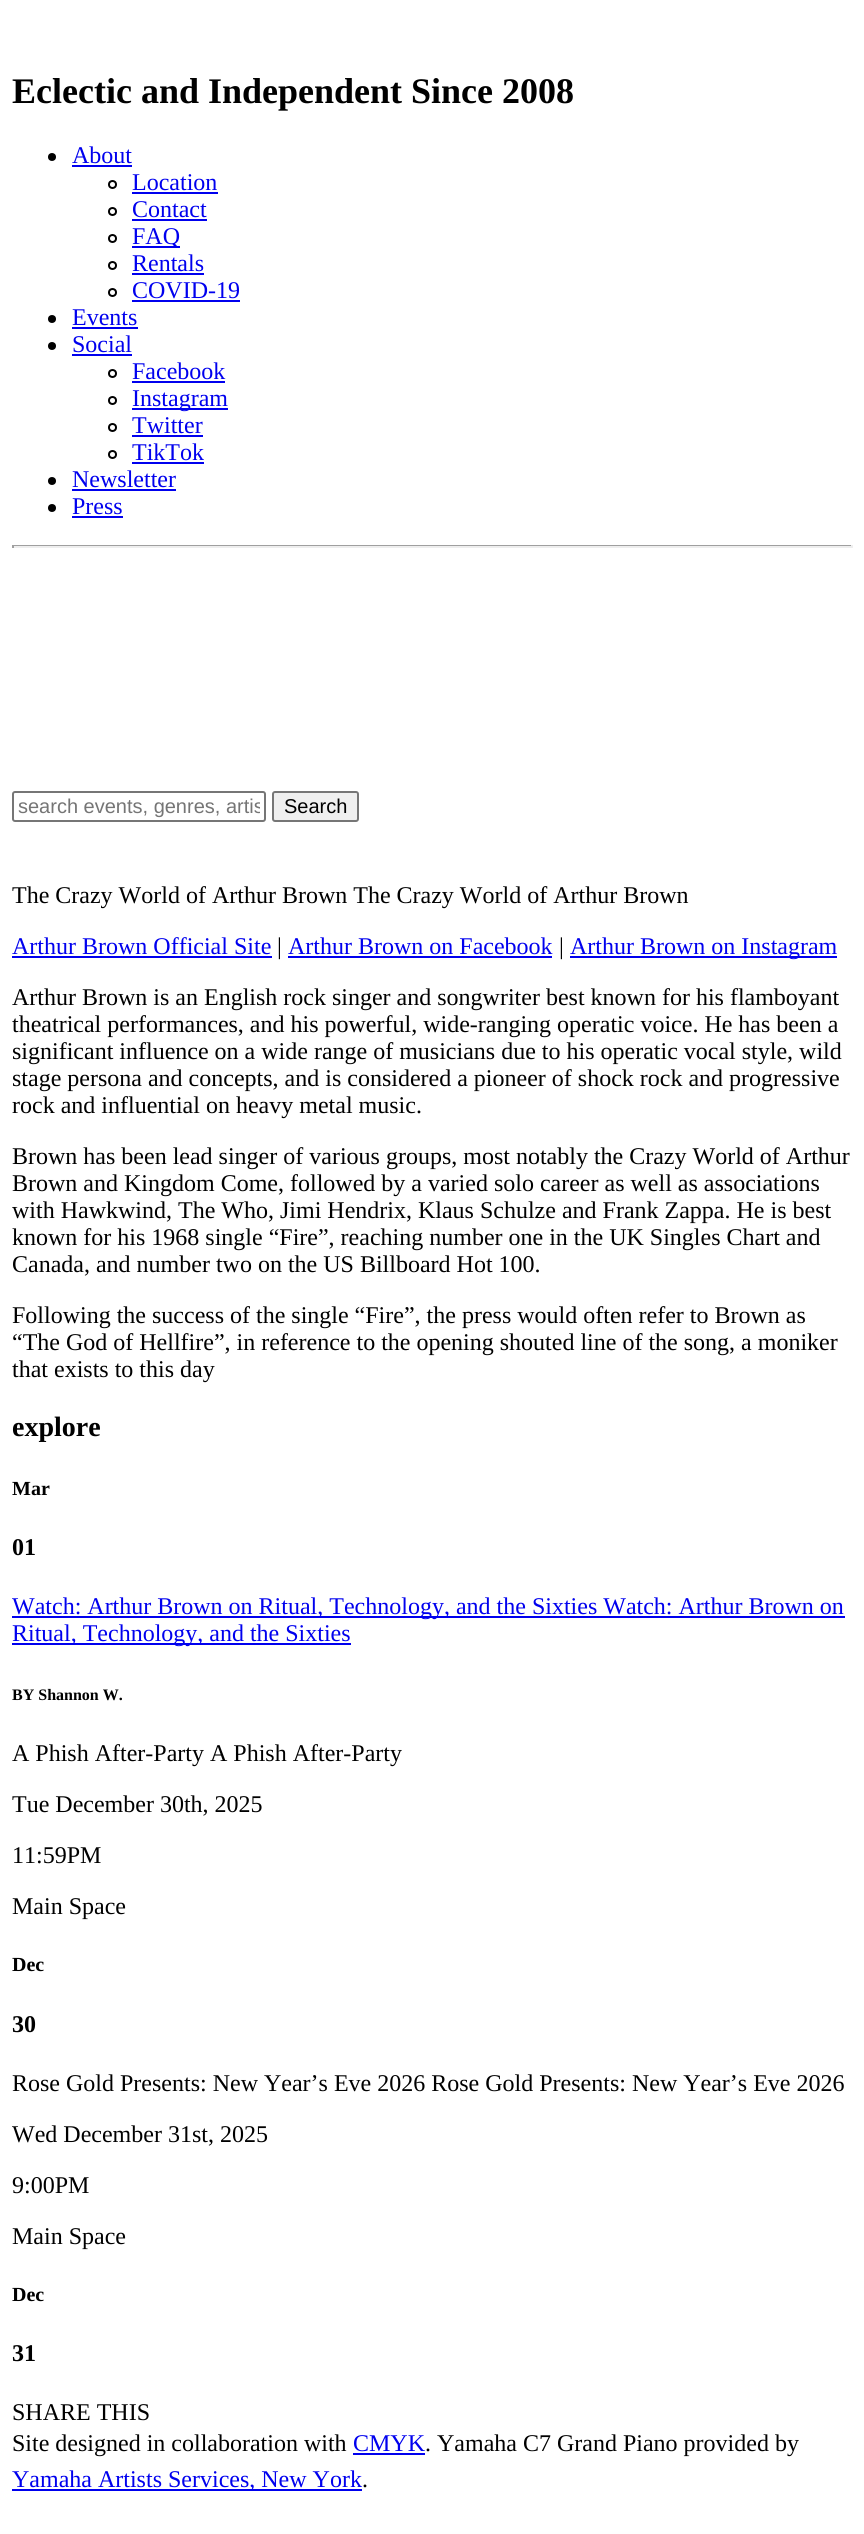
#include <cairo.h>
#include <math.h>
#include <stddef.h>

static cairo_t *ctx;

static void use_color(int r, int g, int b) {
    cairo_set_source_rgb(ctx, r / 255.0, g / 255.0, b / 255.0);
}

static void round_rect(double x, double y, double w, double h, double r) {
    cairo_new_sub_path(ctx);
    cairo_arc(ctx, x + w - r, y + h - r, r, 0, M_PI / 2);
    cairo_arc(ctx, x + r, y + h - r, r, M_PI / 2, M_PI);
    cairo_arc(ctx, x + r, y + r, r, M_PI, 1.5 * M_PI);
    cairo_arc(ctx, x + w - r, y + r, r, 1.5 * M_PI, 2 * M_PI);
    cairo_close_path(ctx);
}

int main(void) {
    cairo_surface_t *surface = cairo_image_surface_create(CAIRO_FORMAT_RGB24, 864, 2534);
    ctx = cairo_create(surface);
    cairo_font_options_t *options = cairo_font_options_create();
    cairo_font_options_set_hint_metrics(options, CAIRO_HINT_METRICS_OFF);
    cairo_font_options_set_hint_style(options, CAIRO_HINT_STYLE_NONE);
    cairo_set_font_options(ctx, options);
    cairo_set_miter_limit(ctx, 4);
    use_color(255, 255, 255);
    cairo_paint(ctx);
    cairo_select_font_face(ctx, "Liberation Serif", CAIRO_FONT_SLANT_NORMAL, CAIRO_FONT_WEIGHT_BOLD);
    cairo_set_font_size(ctx, 36);
    use_color(0, 0, 0);
    cairo_move_to(ctx, 12, 103);
    cairo_show_text(ctx, "Eclectic and Independent Since 2008");
    cairo_new_path(ctx);
    cairo_arc(ctx, 52, 157, 4, 0, 2 * M_PI);
    cairo_fill(ctx);
    cairo_select_font_face(ctx, "Liberation Serif", CAIRO_FONT_SLANT_NORMAL, CAIRO_FONT_WEIGHT_NORMAL);
    cairo_set_font_size(ctx, 24);
    use_color(0, 0, 238);
    cairo_move_to(ctx, 72, 163);
    cairo_show_text(ctx, "About");
    cairo_rectangle(ctx, 72, 165, 60, 2);
    cairo_fill(ctx);
    cairo_arc(ctx, 112.5, 184.5, 3.5, 0, 2 * M_PI);
    use_color(0, 0, 0);
    cairo_stroke(ctx);
    use_color(0, 0, 238);
    cairo_move_to(ctx, 132, 190);
    cairo_show_text(ctx, "Location");
    cairo_rectangle(ctx, 132, 192, 86, 2);
    cairo_fill(ctx);
    cairo_arc(ctx, 112.5, 211.5, 3.5, 0, 2 * M_PI);
    use_color(0, 0, 0);
    cairo_stroke(ctx);
    use_color(0, 0, 238);
    cairo_move_to(ctx, 132, 217);
    cairo_show_text(ctx, "Contact");
    cairo_rectangle(ctx, 132, 219, 75, 2);
    cairo_fill(ctx);
    cairo_arc(ctx, 112.5, 238.5, 3.5, 0, 2 * M_PI);
    use_color(0, 0, 0);
    cairo_stroke(ctx);
    use_color(0, 0, 238);
    cairo_rectangle(ctx, 132, 246, 48, 2);
    cairo_fill(ctx);
    cairo_move_to(ctx, 132, 244);
    cairo_show_text(ctx, "FAQ");
    cairo_new_path(ctx);
    cairo_arc(ctx, 112.5, 265.5, 3.5, 0, 2 * M_PI);
    use_color(0, 0, 0);
    cairo_stroke(ctx);
    use_color(0, 0, 238);
    cairo_move_to(ctx, 132, 271);
    cairo_show_text(ctx, "Rentals");
    cairo_rectangle(ctx, 132, 273, 72, 2);
    cairo_fill(ctx);
    cairo_arc(ctx, 112.5, 292.5, 3.5, 0, 2 * M_PI);
    use_color(0, 0, 0);
    cairo_stroke(ctx);
    use_color(0, 0, 238);
    cairo_move_to(ctx, 132, 298);
    cairo_show_text(ctx, "COVID-19");
    cairo_rectangle(ctx, 132, 300, 108, 2);
    cairo_fill(ctx);
    use_color(0, 0, 0);
    cairo_arc(ctx, 52, 319, 4, 0, 2 * M_PI);
    cairo_fill(ctx);
    use_color(0, 0, 238);
    cairo_move_to(ctx, 72, 325);
    cairo_show_text(ctx, "Events");
    cairo_rectangle(ctx, 72, 327, 66, 2);
    cairo_fill(ctx);
    use_color(0, 0, 0);
    cairo_arc(ctx, 52, 346, 4, 0, 2 * M_PI);
    cairo_fill(ctx);
    use_color(0, 0, 238);
    cairo_move_to(ctx, 72, 352);
    cairo_show_text(ctx, "Social");
    cairo_rectangle(ctx, 72, 354, 60, 2);
    cairo_fill(ctx);
    cairo_arc(ctx, 112.5, 373.5, 3.5, 0, 2 * M_PI);
    use_color(0, 0, 0);
    cairo_stroke(ctx);
    use_color(0, 0, 238);
    cairo_move_to(ctx, 132, 379);
    cairo_show_text(ctx, "Facebook");
    cairo_rectangle(ctx, 132, 381, 93, 2);
    cairo_fill(ctx);
    cairo_arc(ctx, 112.5, 400.5, 3.5, 0, 2 * M_PI);
    use_color(0, 0, 0);
    cairo_stroke(ctx);
    use_color(0, 0, 238);
    cairo_rectangle(ctx, 132, 408, 96, 2);
    cairo_fill(ctx);
    cairo_move_to(ctx, 132, 406);
    cairo_show_text(ctx, "Instagram");
    cairo_new_path(ctx);
    cairo_arc(ctx, 112.5, 427.5, 3.5, 0, 2 * M_PI);
    use_color(0, 0, 0);
    cairo_stroke(ctx);
    use_color(0, 0, 238);
    cairo_move_to(ctx, 132, 433);
    cairo_show_text(ctx, "Twitter");
    cairo_rectangle(ctx, 132, 435, 71, 2);
    cairo_fill(ctx);
    cairo_arc(ctx, 112.5, 454.5, 3.5, 0, 2 * M_PI);
    use_color(0, 0, 0);
    cairo_stroke(ctx);
    use_color(0, 0, 238);
    cairo_move_to(ctx, 132, 460);
    cairo_show_text(ctx, "TikTok");
    cairo_rectangle(ctx, 132, 462, 72, 2);
    cairo_fill(ctx);
    use_color(0, 0, 0);
    cairo_arc(ctx, 52, 481, 4, 0, 2 * M_PI);
    cairo_fill(ctx);
    use_color(0, 0, 238);
    cairo_move_to(ctx, 72, 487);
    cairo_show_text(ctx, "Newsletter");
    cairo_rectangle(ctx, 72, 489, 104, 2);
    cairo_fill(ctx);
    use_color(0, 0, 0);
    cairo_arc(ctx, 52, 508, 4, 0, 2 * M_PI);
    cairo_fill(ctx);
    use_color(0, 0, 238);
    cairo_move_to(ctx, 72, 514);
    cairo_show_text(ctx, "Press");
    cairo_rectangle(ctx, 72, 516, 51, 2);
    cairo_fill(ctx);
    use_color(159, 159, 159);
    cairo_rectangle(ctx, 12, 545, 840, 1);
    cairo_fill(ctx);
    use_color(238, 238, 238);
    cairo_rectangle(ctx, 851, 545, 2, 3);
    cairo_fill(ctx);
    cairo_rectangle(ctx, 12, 546, 840, 2);
    cairo_fill(ctx);
    use_color(159, 159, 159);
    cairo_rectangle(ctx, 12, 545, 2, 3);
    cairo_fill(ctx);
    round_rect(13, 792, 252, 29, 2);
    use_color(118, 118, 118);
    cairo_stroke(ctx);
    cairo_save(ctx);
    cairo_rectangle(ctx, 18, 795, 242, 23);
    cairo_clip(ctx);
    cairo_select_font_face(ctx, "Liberation Sans", CAIRO_FONT_SLANT_NORMAL, CAIRO_FONT_WEIGHT_NORMAL);
    cairo_set_font_size(ctx, 20);
    use_color(117, 117, 117);
    cairo_move_to(ctx, 18, 813);
    cairo_show_text(ctx, "search events, genres, artis");
    cairo_restore(ctx);
    use_color(239, 239, 239);
    round_rect(273, 792, 85, 29, 2);
    cairo_fill_preserve(ctx);
    use_color(118, 118, 118);
    cairo_stroke(ctx);
    cairo_select_font_face(ctx, "Liberation Sans", CAIRO_FONT_SLANT_NORMAL, CAIRO_FONT_WEIGHT_NORMAL);
    cairo_set_font_size(ctx, 20);
    use_color(0, 0, 0);
    cairo_move_to(ctx, 284, 813);
    cairo_show_text(ctx, "Search");
    cairo_select_font_face(ctx, "Liberation Serif", CAIRO_FONT_SLANT_NORMAL, CAIRO_FONT_WEIGHT_NORMAL);
    cairo_set_font_size(ctx, 24);
    cairo_move_to(ctx, 12, 903);
    cairo_show_text(ctx, "The Crazy World of Arthur Brown The Crazy World of Arthur Brown");
    use_color(0, 0, 238);
    cairo_move_to(ctx, 12, 954);
    cairo_show_text(ctx, "Arthur Brown Official Site");
    cairo_rectangle(ctx, 12, 956, 260, 2);
    cairo_fill(ctx);
    use_color(0, 0, 0);
    cairo_move_to(ctx, 277, 954);
    cairo_show_text(ctx, "|");
    use_color(0, 0, 238);
    cairo_move_to(ctx, 288, 954);
    cairo_show_text(ctx, "Arthur Brown on Facebook");
    cairo_rectangle(ctx, 288, 956, 264, 2);
    cairo_fill(ctx);
    use_color(0, 0, 0);
    cairo_move_to(ctx, 559, 954);
    cairo_show_text(ctx, "|");
    use_color(0, 0, 238);
    cairo_rectangle(ctx, 570, 956, 267, 2);
    cairo_fill(ctx);
    cairo_move_to(ctx, 570, 954);
    cairo_show_text(ctx, "Arthur Brown on Instagram");
    use_color(0, 0, 0);
    cairo_move_to(ctx, 12, 1005);
    cairo_show_text(ctx, "Arthur Brown is an English rock singer and songwriter best known for his flamboyant");
    cairo_move_to(ctx, 12, 1032);
    cairo_show_text(ctx, "theatrical performances, and his powerful, wide-ranging operatic voice. He has been a");
    cairo_move_to(ctx, 12, 1059);
    cairo_show_text(ctx, "significant influence on a wide range of musicians due to his operatic vocal style, wild");
    cairo_move_to(ctx, 12, 1086);
    cairo_show_text(ctx, "stage persona and concepts, and is considered a pioneer of shock rock and progressive");
    cairo_move_to(ctx, 12, 1113);
    cairo_show_text(ctx, "rock and influential on heavy metal music.");
    cairo_move_to(ctx, 12, 1164);
    cairo_show_text(ctx, "Brown has been lead singer of various groups, most notably the Crazy World of Arthur");
    cairo_move_to(ctx, 12, 1191);
    cairo_show_text(ctx, "Brown and Kingdom Come, followed by a varied solo career as well as associations");
    cairo_move_to(ctx, 12, 1218);
    cairo_show_text(ctx, "with Hawkwind, The Who, Jimi Hendrix, Klaus Schulze and Frank Zappa. He is best");
    cairo_move_to(ctx, 12, 1245);
    cairo_show_text(ctx, "known for his 1968 single “Fire”, reaching number one in the UK Singles Chart and");
    cairo_move_to(ctx, 12, 1272);
    cairo_show_text(ctx, "Canada, and number two on the US Billboard Hot 100.");
    cairo_move_to(ctx, 12, 1323);
    cairo_show_text(ctx, "Following the success of the single “Fire”, the press would often refer to Brown as");
    cairo_move_to(ctx, 12, 1350);
    cairo_show_text(ctx, "“The God of Hellfire”, in reference to the opening shouted line of the song, a moniker");
    cairo_move_to(ctx, 12, 1377);
    cairo_show_text(ctx, "that exists to this day");
    cairo_select_font_face(ctx, "Liberation Serif", CAIRO_FONT_SLANT_NORMAL, CAIRO_FONT_WEIGHT_BOLD);
    cairo_set_font_size(ctx, 28);
    cairo_move_to(ctx, 12, 1436);
    cairo_show_text(ctx, "explore");
    cairo_set_font_size(ctx, 20);
    cairo_move_to(ctx, 12, 1495);
    cairo_show_text(ctx, "Mar");
    cairo_set_font_size(ctx, 24);
    cairo_move_to(ctx, 12, 1555);
    cairo_show_text(ctx, "01");
    use_color(0, 0, 238);
    cairo_rectangle(ctx, 12, 1616, 833, 2);
    cairo_fill(ctx);
    cairo_select_font_face(ctx, "Liberation Serif", CAIRO_FONT_SLANT_NORMAL, CAIRO_FONT_WEIGHT_NORMAL);
    cairo_move_to(ctx, 12, 1614);
    cairo_show_text(ctx, "Watch: Arthur Brown on Ritual, Technology, and the Sixties Watch: Arthur Brown on");
    cairo_rectangle(ctx, 12, 1643, 339, 2);
    cairo_fill(ctx);
    cairo_move_to(ctx, 12, 1641);
    cairo_show_text(ctx, "Ritual, Technology, and the Sixties");
    cairo_select_font_face(ctx, "Liberation Serif", CAIRO_FONT_SLANT_NORMAL, CAIRO_FONT_WEIGHT_BOLD);
    cairo_set_font_size(ctx, 16);
    use_color(0, 0, 0);
    cairo_move_to(ctx, 12, 1700);
    cairo_show_text(ctx, "BY Shannon W.");
    cairo_select_font_face(ctx, "Liberation Serif", CAIRO_FONT_SLANT_NORMAL, CAIRO_FONT_WEIGHT_NORMAL);
    cairo_set_font_size(ctx, 24);
    cairo_move_to(ctx, 12, 1761);
    cairo_show_text(ctx, "A Phish After-Party A Phish After-Party");
    cairo_move_to(ctx, 12, 1812);
    cairo_show_text(ctx, "Tue December 30th, 2025");
    cairo_move_to(ctx, 12, 1863);
    cairo_show_text(ctx, "11:59PM");
    cairo_move_to(ctx, 12, 1914);
    cairo_show_text(ctx, "Main Space");
    cairo_select_font_face(ctx, "Liberation Serif", CAIRO_FONT_SLANT_NORMAL, CAIRO_FONT_WEIGHT_BOLD);
    cairo_set_font_size(ctx, 20);
    cairo_move_to(ctx, 12, 1971);
    cairo_show_text(ctx, "Dec");
    cairo_set_font_size(ctx, 24);
    cairo_move_to(ctx, 12, 2032);
    cairo_show_text(ctx, "30");
    cairo_select_font_face(ctx, "Liberation Serif", CAIRO_FONT_SLANT_NORMAL, CAIRO_FONT_WEIGHT_NORMAL);
    cairo_move_to(ctx, 12, 2091);
    cairo_show_text(ctx, "Rose Gold Presents: New Year’s Eve 2026 Rose Gold Presents: New Year’s Eve 2026");
    cairo_move_to(ctx, 12, 2142);
    cairo_show_text(ctx, "Wed December 31st, 2025");
    cairo_move_to(ctx, 12, 2193);
    cairo_show_text(ctx, "9:00PM");
    cairo_move_to(ctx, 12, 2244);
    cairo_show_text(ctx, "Main Space");
    cairo_select_font_face(ctx, "Liberation Serif", CAIRO_FONT_SLANT_NORMAL, CAIRO_FONT_WEIGHT_BOLD);
    cairo_set_font_size(ctx, 20);
    cairo_move_to(ctx, 12, 2301);
    cairo_show_text(ctx, "Dec");
    cairo_set_font_size(ctx, 24);
    cairo_move_to(ctx, 12, 2361);
    cairo_show_text(ctx, "31");
    cairo_select_font_face(ctx, "Liberation Serif", CAIRO_FONT_SLANT_NORMAL, CAIRO_FONT_WEIGHT_NORMAL);
    cairo_move_to(ctx, 12, 2420);
    cairo_show_text(ctx, "SHARE THIS");
    cairo_move_to(ctx, 12, 2451);
    cairo_show_text(ctx, "Site designed in collaboration with");
    use_color(0, 0, 238);
    cairo_move_to(ctx, 353, 2451);
    cairo_show_text(ctx, "CMYK");
    cairo_rectangle(ctx, 353, 2453, 72, 2);
    cairo_fill(ctx);
    use_color(0, 0, 0);
    cairo_move_to(ctx, 425, 2451);
    cairo_show_text(ctx, ". Yamaha C7 Grand Piano provided by");
    use_color(0, 0, 238);
    cairo_rectangle(ctx, 12, 2489, 350, 2);
    cairo_fill(ctx);
    cairo_move_to(ctx, 12, 2487);
    cairo_show_text(ctx, "Yamaha Artists Services, New York");
    use_color(0, 0, 0);
    cairo_move_to(ctx, 362, 2487);
    cairo_show_text(ctx, ".");
    cairo_surface_write_to_png(surface, "result.png");
    cairo_font_options_destroy(options);
    cairo_destroy(ctx);
    cairo_surface_destroy(surface);
    return 0;
}
